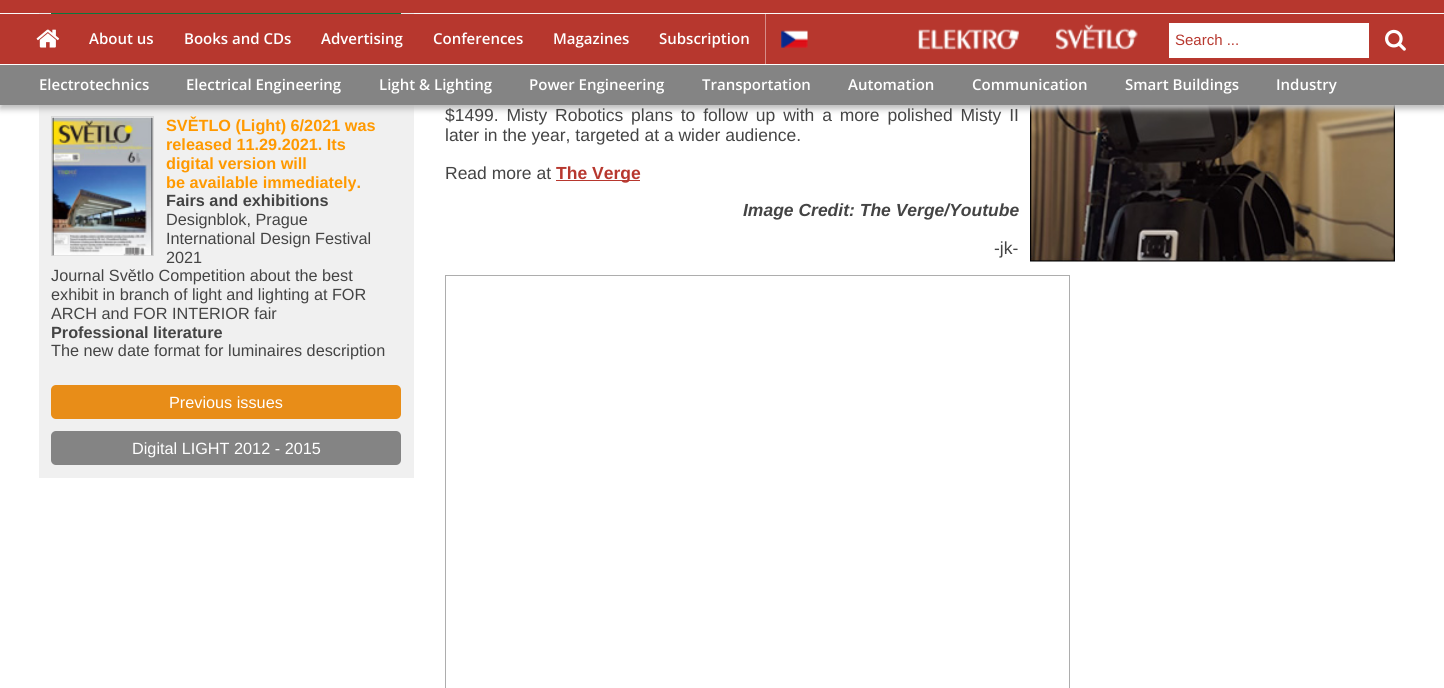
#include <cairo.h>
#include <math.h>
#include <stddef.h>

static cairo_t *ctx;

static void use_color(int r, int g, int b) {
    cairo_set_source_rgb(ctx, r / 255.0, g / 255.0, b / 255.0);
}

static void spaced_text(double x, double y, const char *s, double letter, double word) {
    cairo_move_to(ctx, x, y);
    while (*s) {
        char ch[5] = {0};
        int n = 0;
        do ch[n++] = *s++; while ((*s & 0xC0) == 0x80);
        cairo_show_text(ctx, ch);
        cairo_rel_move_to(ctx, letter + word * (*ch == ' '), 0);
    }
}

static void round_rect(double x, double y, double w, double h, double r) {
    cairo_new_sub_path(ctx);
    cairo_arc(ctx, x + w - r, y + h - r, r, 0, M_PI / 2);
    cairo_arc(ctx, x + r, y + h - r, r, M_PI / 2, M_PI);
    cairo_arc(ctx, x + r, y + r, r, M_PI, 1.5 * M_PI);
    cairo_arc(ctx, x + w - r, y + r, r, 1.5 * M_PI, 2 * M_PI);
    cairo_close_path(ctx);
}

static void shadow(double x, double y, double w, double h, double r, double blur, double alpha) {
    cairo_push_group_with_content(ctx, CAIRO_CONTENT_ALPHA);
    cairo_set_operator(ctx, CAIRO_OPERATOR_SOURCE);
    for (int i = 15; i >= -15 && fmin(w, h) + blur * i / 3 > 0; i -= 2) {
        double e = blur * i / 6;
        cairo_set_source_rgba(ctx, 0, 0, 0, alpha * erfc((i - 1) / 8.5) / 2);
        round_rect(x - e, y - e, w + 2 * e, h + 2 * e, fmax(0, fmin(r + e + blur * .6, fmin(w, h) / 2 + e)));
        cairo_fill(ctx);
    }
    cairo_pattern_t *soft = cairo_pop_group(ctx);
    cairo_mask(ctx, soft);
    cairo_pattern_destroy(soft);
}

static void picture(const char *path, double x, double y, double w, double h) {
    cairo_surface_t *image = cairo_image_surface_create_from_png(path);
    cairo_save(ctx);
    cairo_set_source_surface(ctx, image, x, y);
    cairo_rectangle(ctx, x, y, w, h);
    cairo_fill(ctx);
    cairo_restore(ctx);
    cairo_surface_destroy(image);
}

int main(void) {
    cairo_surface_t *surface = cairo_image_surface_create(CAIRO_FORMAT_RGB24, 1444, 688);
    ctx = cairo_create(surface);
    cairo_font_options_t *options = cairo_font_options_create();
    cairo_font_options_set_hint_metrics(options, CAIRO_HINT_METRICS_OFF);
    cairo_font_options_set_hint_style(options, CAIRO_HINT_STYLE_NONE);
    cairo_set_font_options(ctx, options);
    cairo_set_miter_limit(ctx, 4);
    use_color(255, 255, 255);
    cairo_paint(ctx);
    use_color(240, 240, 240);
    cairo_rectangle(ctx, 39, 13, 375, 465);
    cairo_fill(ctx);
    use_color(0, 114, 54);
    cairo_rectangle(ctx, 51, 13, 350, 1);
    cairo_fill(ctx);
    cairo_rectangle(ctx, 51.5, 116.5, 102, 139);
    use_color(216, 216, 216);
    cairo_set_line_width(ctx, 1);
    cairo_stroke(ctx);
    picture("img6.png", 52, 117, 101, 139);
    picture("img7.png", 1030, 105, 365, 157);
    use_color(187, 187, 187);
    shadow(0, 18, 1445, 91, 0, 3, 1);
    use_color(183, 55, 46);
    cairo_rectangle(ctx, 0, 0, 1444, 13);
    cairo_fill(ctx);
    use_color(255, 255, 255);
    cairo_rectangle(ctx, 0, 64, 1444, 1);
    cairo_fill(ctx);
    use_color(183, 55, 46);
    cairo_rectangle(ctx, 0, 14, 1444, 50);
    cairo_fill(ctx);
    use_color(214, 141, 137);
    cairo_rectangle(ctx, 765, 14, 1, 50);
    cairo_fill(ctx);
    picture("img1.png", 36, 29, 24, 19);
    cairo_select_font_face(ctx, "Open Sans SemiBold", CAIRO_FONT_SLANT_NORMAL, CAIRO_FONT_WEIGHT_NORMAL);
    cairo_set_font_size(ctx, 15);
    use_color(255, 255, 255);
    cairo_move_to(ctx, 89, 44);
    cairo_show_text(ctx, "About us");
    cairo_move_to(ctx, 184, 44);
    cairo_show_text(ctx, "Books and CDs");
    cairo_move_to(ctx, 321, 44);
    cairo_show_text(ctx, "Advertising");
    cairo_move_to(ctx, 433, 44);
    cairo_show_text(ctx, "Conferences");
    cairo_move_to(ctx, 553, 44);
    cairo_show_text(ctx, "Magazines");
    cairo_move_to(ctx, 659, 44);
    cairo_show_text(ctx, "Subscription");
    picture("img2.png", 781, 30, 27, 18);
    picture("img3.png", 918, 29, 101, 21);
    picture("img4.png", 1056, 24, 82, 26);
    cairo_rectangle(ctx, 1169, 23, 200, 35);
    cairo_fill(ctx);
    cairo_select_font_face(ctx, "Liberation Sans", CAIRO_FONT_SLANT_NORMAL, CAIRO_FONT_WEIGHT_NORMAL);
    use_color(183, 55, 46);
    cairo_move_to(ctx, 1175, 45);
    cairo_show_text(ctx, "Search ...");
    picture("img5.png", 1385, 29, 21, 22);
    use_color(132, 132, 132);
    cairo_rectangle(ctx, 0, 65, 1444, 40);
    cairo_fill(ctx);
    cairo_select_font_face(ctx, "Open Sans SemiBold", CAIRO_FONT_SLANT_NORMAL, CAIRO_FONT_WEIGHT_NORMAL);
    use_color(255, 255, 255);
    cairo_move_to(ctx, 39, 90);
    cairo_show_text(ctx, "Electrotechnics");
    cairo_move_to(ctx, 186, 90);
    cairo_show_text(ctx, "Electrical Engineering");
    cairo_move_to(ctx, 379, 90);
    cairo_show_text(ctx, "Light & Lighting");
    cairo_move_to(ctx, 529, 90);
    cairo_show_text(ctx, "Power Engineering");
    cairo_move_to(ctx, 702, 90);
    cairo_show_text(ctx, "Transportation");
    cairo_move_to(ctx, 848, 90);
    cairo_show_text(ctx, "Automation");
    cairo_move_to(ctx, 972, 90);
    cairo_show_text(ctx, "Communication");
    cairo_move_to(ctx, 1125, 90);
    cairo_show_text(ctx, "Smart Buildings");
    cairo_move_to(ctx, 1276, 90);
    cairo_show_text(ctx, "Industry");
    cairo_select_font_face(ctx, "Liberation Sans", CAIRO_FONT_SLANT_NORMAL, CAIRO_FONT_WEIGHT_BOLD);
    cairo_set_font_size(ctx, 16.25);
    use_color(255, 153, 0);
    cairo_move_to(ctx, 166, 131);
    cairo_show_text(ctx, "SVĚTLO (Light) 6/2021 was");
    cairo_move_to(ctx, 166, 150);
    cairo_show_text(ctx, "released 11.29.2021. Its");
    cairo_move_to(ctx, 166, 169);
    cairo_show_text(ctx, "digital version will");
    cairo_move_to(ctx, 166, 188);
    cairo_show_text(ctx, "be available immediately.");
    use_color(240, 240, 240);
    cairo_rectangle(ctx, 356, 173, 1, 9);
    cairo_fill(ctx);
    use_color(68, 68, 68);
    cairo_move_to(ctx, 166, 206);
    cairo_show_text(ctx, "Fairs and exhibitions");
    cairo_select_font_face(ctx, "Liberation Sans", CAIRO_FONT_SLANT_NORMAL, CAIRO_FONT_WEIGHT_NORMAL);
    cairo_move_to(ctx, 166, 225);
    cairo_show_text(ctx, "Designblok, Prague");
    cairo_move_to(ctx, 166, 244);
    cairo_show_text(ctx, "International Design Festival");
    cairo_move_to(ctx, 166, 263);
    cairo_show_text(ctx, "2021");
    cairo_move_to(ctx, 51, 281);
    cairo_show_text(ctx, "Journal Světlo Competition about the best");
    cairo_move_to(ctx, 51, 300);
    cairo_show_text(ctx, "exhibit in branch of light and lighting at FOR");
    cairo_move_to(ctx, 51, 319);
    cairo_show_text(ctx, "ARCH and FOR INTERIOR fair");
    cairo_select_font_face(ctx, "Liberation Sans", CAIRO_FONT_SLANT_NORMAL, CAIRO_FONT_WEIGHT_BOLD);
    cairo_move_to(ctx, 51, 338);
    cairo_show_text(ctx, "Professional literature");
    cairo_select_font_face(ctx, "Liberation Sans", CAIRO_FONT_SLANT_NORMAL, CAIRO_FONT_WEIGHT_NORMAL);
    cairo_move_to(ctx, 51, 356);
    cairo_show_text(ctx, "The new date format for luminaires description");
    use_color(232, 141, 24);
    round_rect(51, 385, 350, 34, 5);
    cairo_fill(ctx);
    use_color(255, 255, 255);
    cairo_move_to(ctx, 169, 408);
    cairo_show_text(ctx, "Previous issues");
    use_color(132, 132, 132);
    round_rect(51, 431, 350, 34, 5);
    cairo_fill(ctx);
    use_color(255, 255, 255);
    cairo_move_to(ctx, 132, 454);
    cairo_show_text(ctx, "Digital LIGHT 2012 - 2015");
    cairo_set_font_size(ctx, 17.5);
    use_color(68, 68, 68);
    spaced_text(445, 121, "$1499. Misty Robotics plans to follow up with a more polished Misty II", 0, 3);
    cairo_move_to(ctx, 445, 141);
    cairo_show_text(ctx, "later in the year, targeted at a wider audience.");
    cairo_move_to(ctx, 445, 179);
    cairo_show_text(ctx, "Read more at");
    use_color(183, 55, 46);
    cairo_rectangle(ctx, 556, 180, 84, 1);
    cairo_fill(ctx);
    cairo_select_font_face(ctx, "Liberation Sans", CAIRO_FONT_SLANT_NORMAL, CAIRO_FONT_WEIGHT_BOLD);
    cairo_move_to(ctx, 556, 179);
    cairo_show_text(ctx, "The Verge");
    cairo_select_font_face(ctx, "Liberation Sans", CAIRO_FONT_SLANT_ITALIC, CAIRO_FONT_WEIGHT_BOLD);
    use_color(68, 68, 68);
    cairo_move_to(ctx, 743, 216);
    cairo_show_text(ctx, "Image Credit: The Verge/Youtube");
    cairo_select_font_face(ctx, "Liberation Sans", CAIRO_FONT_SLANT_NORMAL, CAIRO_FONT_WEIGHT_NORMAL);
    cairo_move_to(ctx, 994, 254);
    cairo_show_text(ctx, "-jk-");
    cairo_rectangle(ctx, 445.5, 275.5, 624, 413);
    use_color(173, 173, 173);
    cairo_stroke(ctx);
    cairo_surface_write_to_png(surface, "result.png");
    cairo_font_options_destroy(options);
    cairo_destroy(ctx);
    cairo_surface_destroy(surface);
    return 0;
}
